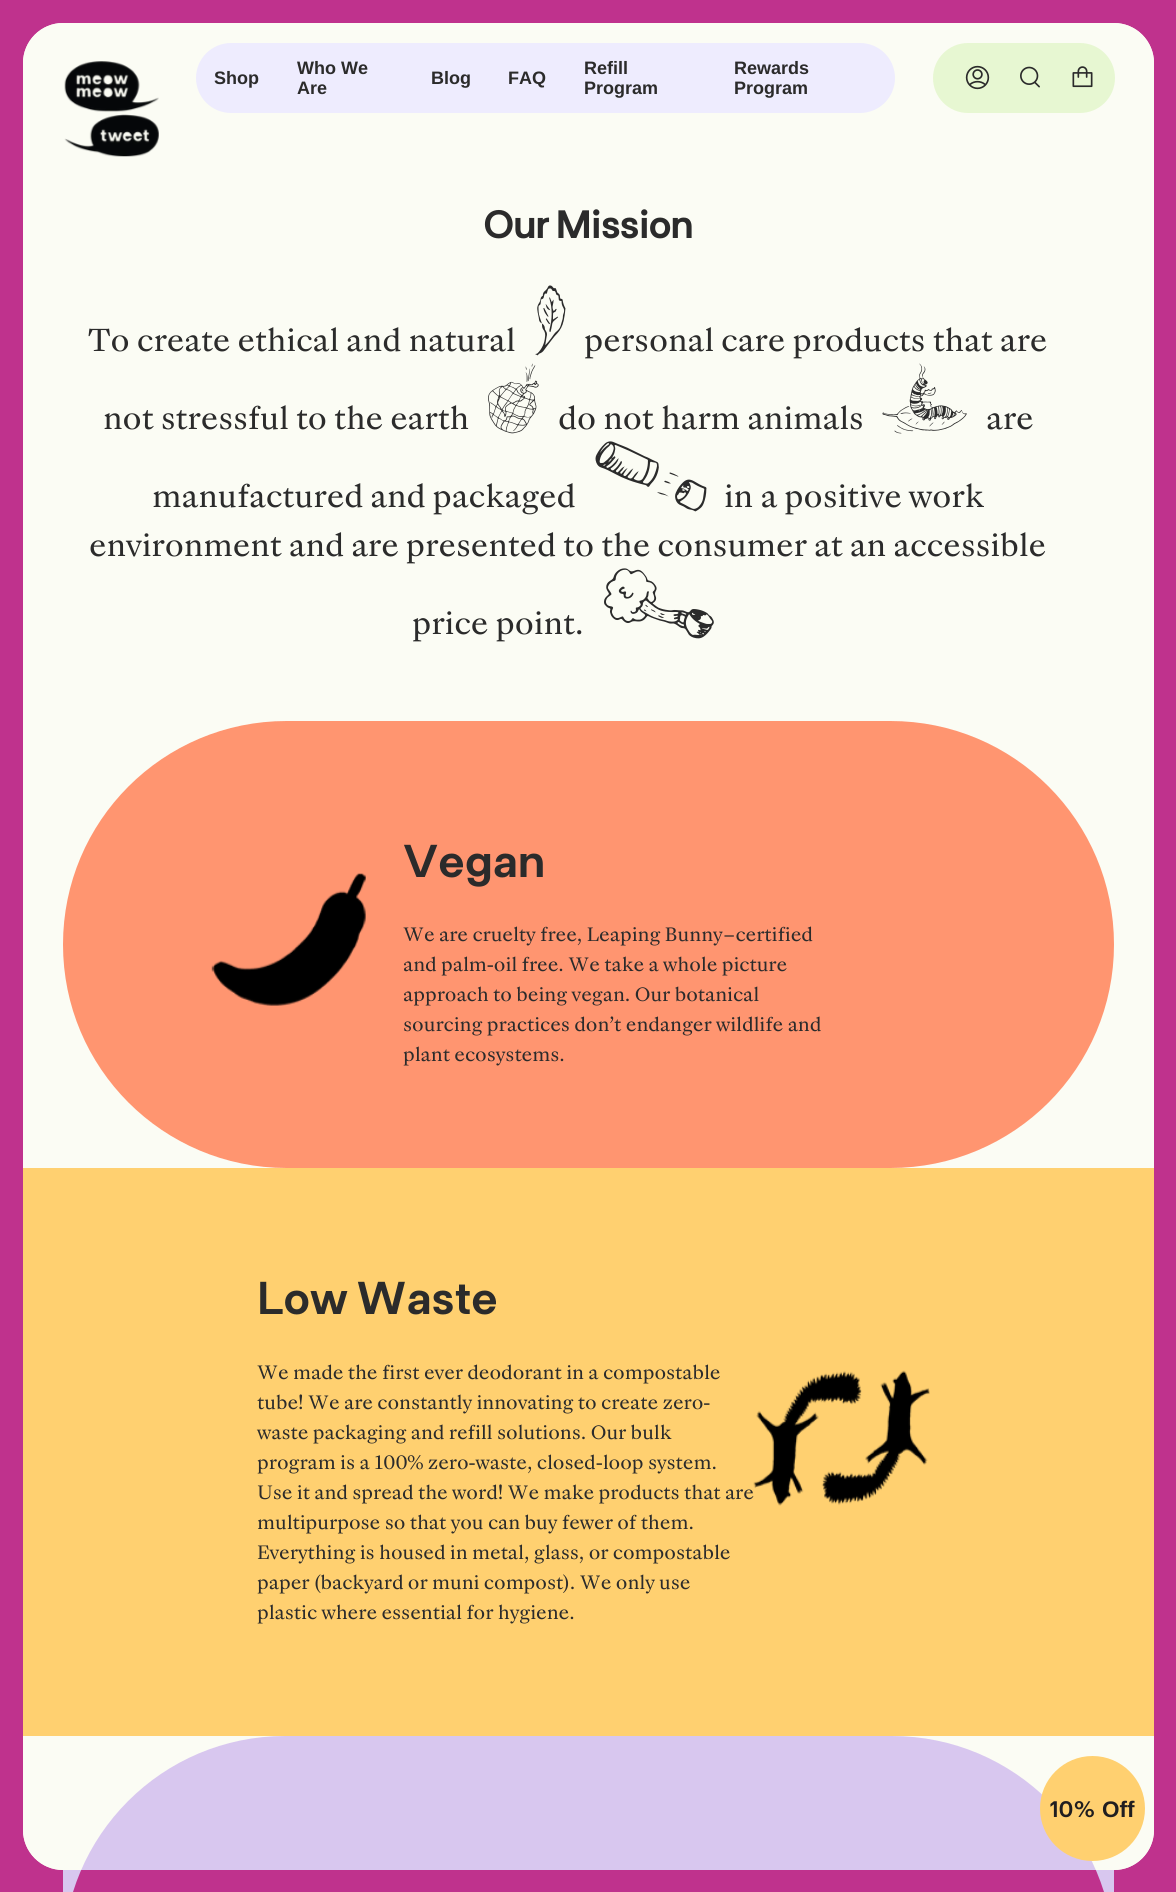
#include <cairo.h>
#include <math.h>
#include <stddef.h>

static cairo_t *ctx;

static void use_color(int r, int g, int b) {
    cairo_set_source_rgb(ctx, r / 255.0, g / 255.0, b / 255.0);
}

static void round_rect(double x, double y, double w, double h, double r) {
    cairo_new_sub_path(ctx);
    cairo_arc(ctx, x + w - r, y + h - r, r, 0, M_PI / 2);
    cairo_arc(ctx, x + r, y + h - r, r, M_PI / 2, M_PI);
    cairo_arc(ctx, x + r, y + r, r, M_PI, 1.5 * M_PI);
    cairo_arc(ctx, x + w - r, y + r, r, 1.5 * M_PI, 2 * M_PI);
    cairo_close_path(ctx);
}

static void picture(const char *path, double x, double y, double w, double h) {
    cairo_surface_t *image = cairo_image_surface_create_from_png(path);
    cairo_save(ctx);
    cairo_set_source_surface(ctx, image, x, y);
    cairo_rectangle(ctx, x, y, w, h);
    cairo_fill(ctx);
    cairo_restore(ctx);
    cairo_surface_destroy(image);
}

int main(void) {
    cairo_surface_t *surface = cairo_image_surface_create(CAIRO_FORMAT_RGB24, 1176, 1892);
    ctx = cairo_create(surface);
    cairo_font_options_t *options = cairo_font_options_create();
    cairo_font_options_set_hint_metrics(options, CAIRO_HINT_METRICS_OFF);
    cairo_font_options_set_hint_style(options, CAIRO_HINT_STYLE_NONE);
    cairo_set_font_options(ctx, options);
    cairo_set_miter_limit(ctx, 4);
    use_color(191, 50, 141);
    cairo_paint(ctx);
    use_color(251, 252, 244);
    round_rect(23, 23, 1131, 1847, 40);
    cairo_fill(ctx);
    cairo_new_path(ctx);
    cairo_move_to(ctx, 63, 23);
    cairo_line_to(ctx, 1114, 23);
    cairo_curve_to(ctx, 1136, 23, 1154, 41, 1154, 63);
    cairo_line_to(ctx, 1154, 150);
    cairo_line_to(ctx, 23, 150);
    cairo_line_to(ctx, 23, 63);
    cairo_curve_to(ctx, 23, 41, 41, 23, 63, 23);
    cairo_close_path(ctx);
    cairo_fill(ctx);
    picture("img1.png", 64, 61, 95, 96);
    use_color(238, 236, 254);
    round_rect(196, 43, 699, 70, 35);
    cairo_fill(ctx);
    cairo_select_font_face(ctx, "Liberation Sans", CAIRO_FONT_SLANT_NORMAL, CAIRO_FONT_WEIGHT_BOLD);
    cairo_set_font_size(ctx, 18);
    use_color(43, 43, 43);
    cairo_move_to(ctx, 214, 84);
    cairo_show_text(ctx, "Shop");
    cairo_move_to(ctx, 297, 74);
    cairo_show_text(ctx, "Who We");
    cairo_move_to(ctx, 297, 94);
    cairo_show_text(ctx, "Are");
    cairo_move_to(ctx, 431, 84);
    cairo_show_text(ctx, "Blog");
    cairo_move_to(ctx, 508, 84);
    cairo_show_text(ctx, "FAQ");
    cairo_move_to(ctx, 584, 74);
    cairo_show_text(ctx, "Refill");
    cairo_move_to(ctx, 584, 94);
    cairo_show_text(ctx, "Program");
    cairo_move_to(ctx, 734, 74);
    cairo_show_text(ctx, "Rewards");
    cairo_move_to(ctx, 734, 94);
    cairo_show_text(ctx, "Program");
    use_color(231, 247, 210);
    round_rect(933, 43, 182, 70, 35);
    cairo_fill(ctx);
    picture("img2.png", 965, 65, 25, 25);
    picture("img3.png", 1020, 66, 20, 22);
    picture("img4.png", 1072, 66, 21, 22);
    cairo_select_font_face(ctx, "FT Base", CAIRO_FONT_SLANT_NORMAL, CAIRO_FONT_WEIGHT_BOLD);
    cairo_set_font_size(ctx, 38);
    use_color(43, 43, 43);
    cairo_move_to(ctx, 483, 238);
    cairo_show_text(ctx, "Our Mission");
    cairo_select_font_face(ctx, "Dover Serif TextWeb", CAIRO_FONT_SLANT_NORMAL, CAIRO_FONT_WEIGHT_NORMAL);
    cairo_set_font_size(ctx, 32.8);
    cairo_move_to(ctx, 88, 351);
    cairo_show_text(ctx, "To create ethical and natural");
    cairo_select_font_face(ctx, "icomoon", CAIRO_FONT_SLANT_NORMAL, CAIRO_FONT_WEIGHT_NORMAL);
    cairo_set_font_size(ctx, 70);
    cairo_move_to(ctx, 535, 351);
    cairo_show_text(ctx, "a");
    cairo_select_font_face(ctx, "Dover Serif TextWeb", CAIRO_FONT_SLANT_NORMAL, CAIRO_FONT_WEIGHT_NORMAL);
    cairo_set_font_size(ctx, 32.8);
    cairo_move_to(ctx, 584, 351);
    cairo_show_text(ctx, "personal care products that are");
    cairo_move_to(ctx, 103, 429);
    cairo_show_text(ctx, "not stressful to the earth");
    cairo_select_font_face(ctx, "icomoon", CAIRO_FONT_SLANT_NORMAL, CAIRO_FONT_WEIGHT_NORMAL);
    cairo_set_font_size(ctx, 70);
    cairo_move_to(ctx, 488, 429);
    cairo_show_text(ctx, "b");
    cairo_select_font_face(ctx, "Dover Serif TextWeb", CAIRO_FONT_SLANT_NORMAL, CAIRO_FONT_WEIGHT_NORMAL);
    cairo_set_font_size(ctx, 32.8);
    cairo_move_to(ctx, 558, 429);
    cairo_show_text(ctx, "do not harm animals");
    cairo_select_font_face(ctx, "icomoon", CAIRO_FONT_SLANT_NORMAL, CAIRO_FONT_WEIGHT_NORMAL);
    cairo_set_font_size(ctx, 70);
    cairo_move_to(ctx, 882, 429);
    cairo_show_text(ctx, "c");
    cairo_select_font_face(ctx, "Dover Serif TextWeb", CAIRO_FONT_SLANT_NORMAL, CAIRO_FONT_WEIGHT_NORMAL);
    cairo_set_font_size(ctx, 32.8);
    cairo_move_to(ctx, 986, 429);
    cairo_show_text(ctx, "are");
    cairo_move_to(ctx, 152, 507);
    cairo_show_text(ctx, "manufactured and packaged");
    cairo_select_font_face(ctx, "icomoon", CAIRO_FONT_SLANT_NORMAL, CAIRO_FONT_WEIGHT_NORMAL);
    cairo_set_font_size(ctx, 70);
    cairo_move_to(ctx, 594, 507);
    cairo_show_text(ctx, "g");
    cairo_select_font_face(ctx, "Dover Serif TextWeb", CAIRO_FONT_SLANT_NORMAL, CAIRO_FONT_WEIGHT_NORMAL);
    cairo_set_font_size(ctx, 32.8);
    cairo_move_to(ctx, 724, 507);
    cairo_show_text(ctx, "in a positive work");
    cairo_move_to(ctx, 89, 556);
    cairo_show_text(ctx, "environment and are presented to the consumer at an accessible");
    cairo_move_to(ctx, 412, 634);
    cairo_show_text(ctx, "price point.");
    cairo_select_font_face(ctx, "icomoon", CAIRO_FONT_SLANT_NORMAL, CAIRO_FONT_WEIGHT_NORMAL);
    cairo_set_font_size(ctx, 70);
    cairo_move_to(ctx, 603, 634);
    cairo_show_text(ctx, "e");
    use_color(255, 149, 112);
    round_rect(63, 721, 1051, 447, 223.5);
    cairo_fill(ctx);
    picture("img5.png", 211, 873, 155, 133);
    cairo_select_font_face(ctx, "FT Base SemiBold", CAIRO_FONT_SLANT_NORMAL, CAIRO_FONT_WEIGHT_NORMAL);
    cairo_set_font_size(ctx, 46);
    use_color(43, 43, 43);
    cairo_move_to(ctx, 403, 877);
    cairo_show_text(ctx, "Vegan");
    cairo_select_font_face(ctx, "Dover Serif TextWeb", CAIRO_FONT_SLANT_NORMAL, CAIRO_FONT_WEIGHT_NORMAL);
    cairo_set_font_size(ctx, 20);
    cairo_move_to(ctx, 403, 941);
    cairo_show_text(ctx, "We are cruelty free, Leaping Bunny–certified");
    cairo_move_to(ctx, 403, 971);
    cairo_show_text(ctx, "and palm-oil free. We take a whole picture");
    cairo_move_to(ctx, 403, 1001);
    cairo_show_text(ctx, "approach to being vegan. Our botanical");
    cairo_move_to(ctx, 403, 1031);
    cairo_show_text(ctx, "sourcing practices don’t endanger wildlife and");
    cairo_move_to(ctx, 403, 1061);
    cairo_show_text(ctx, "plant ecosystems.");
    use_color(255, 208, 112);
    cairo_rectangle(ctx, 23, 1168, 1131, 568);
    cairo_fill(ctx);
    cairo_select_font_face(ctx, "FT Base SemiBold", CAIRO_FONT_SLANT_NORMAL, CAIRO_FONT_WEIGHT_NORMAL);
    cairo_set_font_size(ctx, 46);
    use_color(43, 43, 43);
    cairo_move_to(ctx, 257, 1314);
    cairo_show_text(ctx, "Low Waste");
    cairo_select_font_face(ctx, "Dover Serif TextWeb", CAIRO_FONT_SLANT_NORMAL, CAIRO_FONT_WEIGHT_NORMAL);
    cairo_set_font_size(ctx, 20);
    cairo_move_to(ctx, 257, 1379);
    cairo_show_text(ctx, "We made the first ever deodorant in a compostable");
    cairo_move_to(ctx, 257, 1409);
    cairo_show_text(ctx, "tube! We are constantly innovating to create zero-");
    cairo_move_to(ctx, 257, 1439);
    cairo_show_text(ctx, "waste packaging and refill solutions. Our bulk");
    cairo_move_to(ctx, 257, 1469);
    cairo_show_text(ctx, "program is a 100% zero-waste, closed-loop system.");
    picture("img6.png", 753, 1370, 177, 136);
    cairo_move_to(ctx, 257, 1499);
    cairo_show_text(ctx, "Use it and spread the word! We make products that are");
    cairo_move_to(ctx, 257, 1529);
    cairo_show_text(ctx, "multipurpose so that you can buy fewer of them.");
    cairo_move_to(ctx, 257, 1559);
    cairo_show_text(ctx, "Everything is housed in metal, glass, or compostable");
    cairo_move_to(ctx, 257, 1589);
    cairo_show_text(ctx, "paper (backyard or muni compost). We only use");
    cairo_move_to(ctx, 257, 1619);
    cairo_show_text(ctx, "plastic where essential for hygiene.");
    use_color(251, 252, 244);
    cairo_new_path(ctx);
    cairo_move_to(ctx, 23, 1736);
    cairo_line_to(ctx, 1154, 1736);
    cairo_line_to(ctx, 1154, 1830);
    cairo_curve_to(ctx, 1154, 1852, 1136, 1870, 1114, 1870);
    cairo_line_to(ctx, 63, 1870);
    cairo_curve_to(ctx, 41, 1870, 23, 1852, 23, 1830);
    cairo_close_path(ctx);
    cairo_fill(ctx);
    use_color(216, 199, 239);
    cairo_new_path(ctx);
    cairo_move_to(ctx, 285, 1736);
    cairo_line_to(ctx, 892, 1736);
    cairo_curve_to(ctx, 1014.5, 1736, 1114, 1835.5, 1114, 1958);
    cairo_line_to(ctx, 1114, 1870);
    cairo_line_to(ctx, 63, 1870);
    cairo_line_to(ctx, 63, 1958);
    cairo_curve_to(ctx, 63, 1835.5, 162.5, 1736, 285, 1736);
    cairo_close_path(ctx);
    cairo_fill(ctx);
    use_color(255, 208, 112);
    cairo_arc(ctx, 1092.5, 1808.5, 52.5, 0, 2 * M_PI);
    cairo_fill(ctx);
    cairo_select_font_face(ctx, "FT Base SemiBold", CAIRO_FONT_SLANT_NORMAL, CAIRO_FONT_WEIGHT_NORMAL);
    cairo_set_font_size(ctx, 22.5);
    use_color(32, 30, 32);
    cairo_move_to(ctx, 1050, 1817);
    cairo_show_text(ctx, "10%");
    cairo_select_font_face(ctx, "Liberation Sans", CAIRO_FONT_SLANT_NORMAL, CAIRO_FONT_WEIGHT_BOLD);
    cairo_move_to(ctx, 1102, 1817);
    cairo_show_text(ctx, "Off");
    cairo_surface_write_to_png(surface, "result.png");
    cairo_font_options_destroy(options);
    cairo_destroy(ctx);
    cairo_surface_destroy(surface);
    return 0;
}
